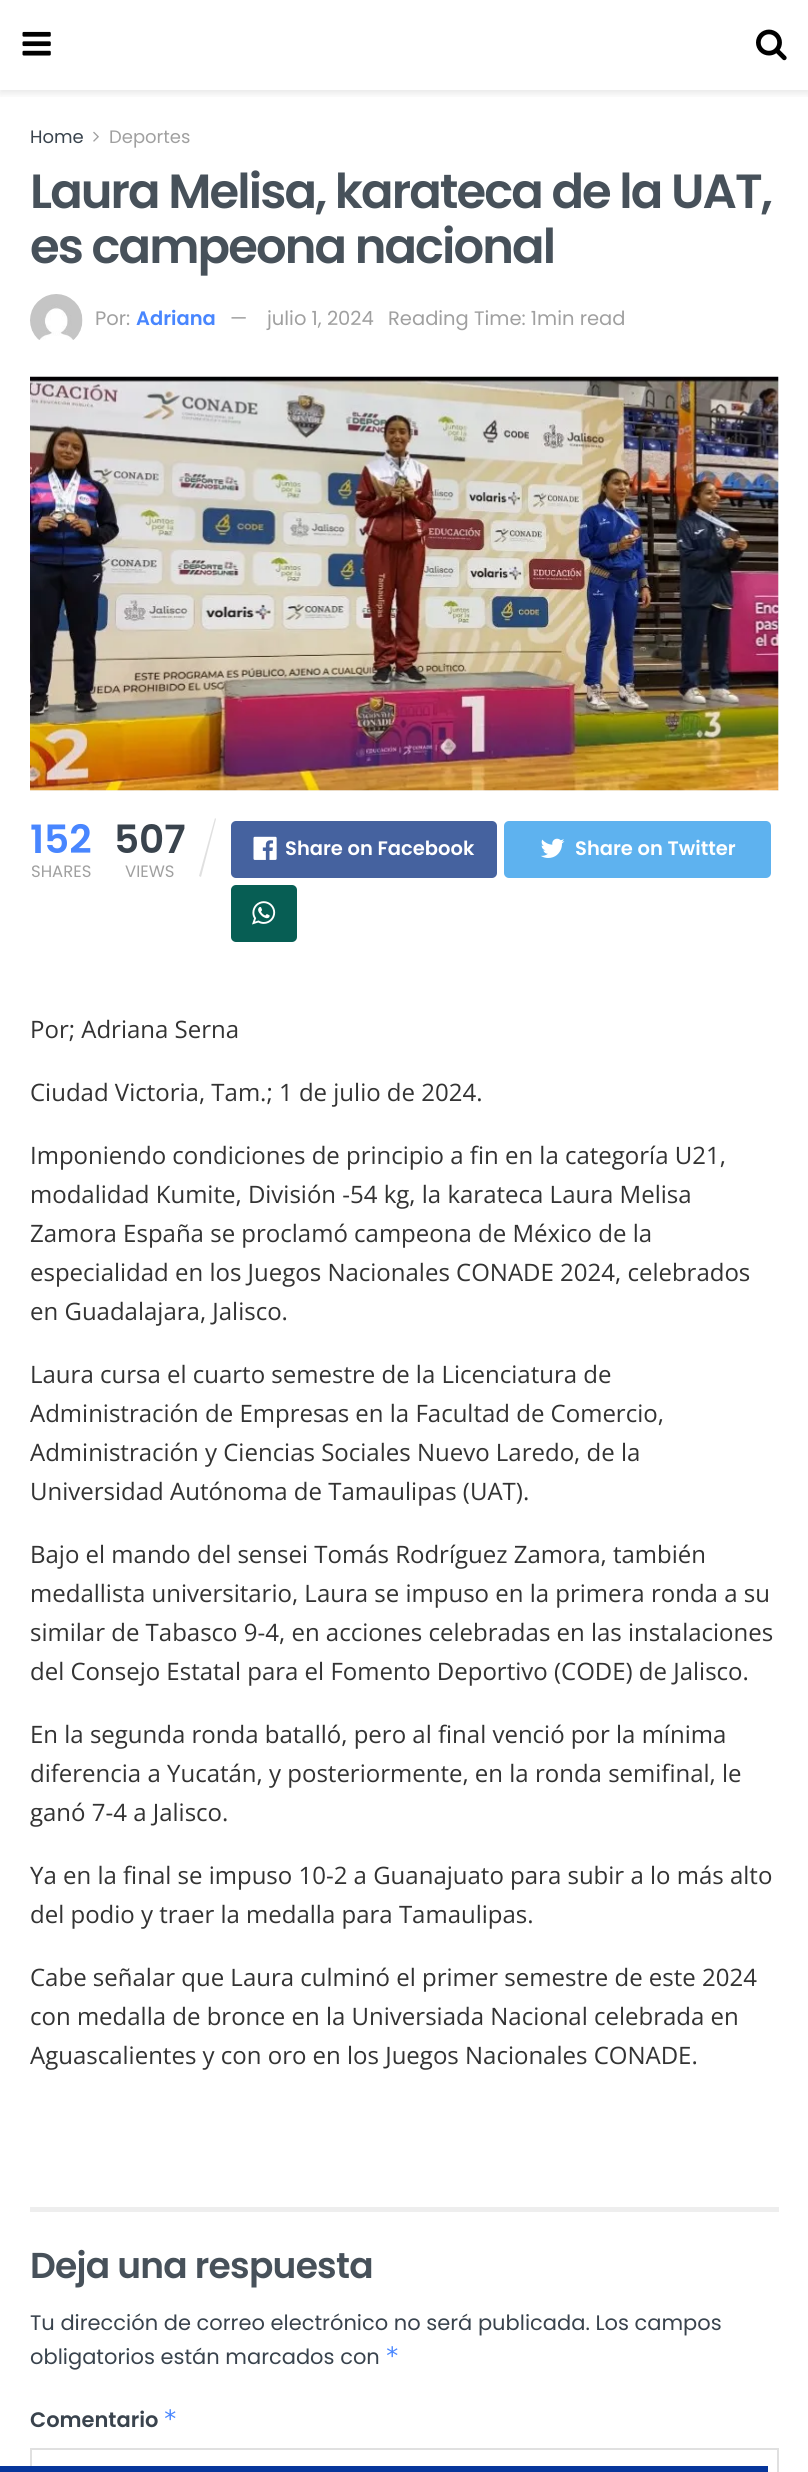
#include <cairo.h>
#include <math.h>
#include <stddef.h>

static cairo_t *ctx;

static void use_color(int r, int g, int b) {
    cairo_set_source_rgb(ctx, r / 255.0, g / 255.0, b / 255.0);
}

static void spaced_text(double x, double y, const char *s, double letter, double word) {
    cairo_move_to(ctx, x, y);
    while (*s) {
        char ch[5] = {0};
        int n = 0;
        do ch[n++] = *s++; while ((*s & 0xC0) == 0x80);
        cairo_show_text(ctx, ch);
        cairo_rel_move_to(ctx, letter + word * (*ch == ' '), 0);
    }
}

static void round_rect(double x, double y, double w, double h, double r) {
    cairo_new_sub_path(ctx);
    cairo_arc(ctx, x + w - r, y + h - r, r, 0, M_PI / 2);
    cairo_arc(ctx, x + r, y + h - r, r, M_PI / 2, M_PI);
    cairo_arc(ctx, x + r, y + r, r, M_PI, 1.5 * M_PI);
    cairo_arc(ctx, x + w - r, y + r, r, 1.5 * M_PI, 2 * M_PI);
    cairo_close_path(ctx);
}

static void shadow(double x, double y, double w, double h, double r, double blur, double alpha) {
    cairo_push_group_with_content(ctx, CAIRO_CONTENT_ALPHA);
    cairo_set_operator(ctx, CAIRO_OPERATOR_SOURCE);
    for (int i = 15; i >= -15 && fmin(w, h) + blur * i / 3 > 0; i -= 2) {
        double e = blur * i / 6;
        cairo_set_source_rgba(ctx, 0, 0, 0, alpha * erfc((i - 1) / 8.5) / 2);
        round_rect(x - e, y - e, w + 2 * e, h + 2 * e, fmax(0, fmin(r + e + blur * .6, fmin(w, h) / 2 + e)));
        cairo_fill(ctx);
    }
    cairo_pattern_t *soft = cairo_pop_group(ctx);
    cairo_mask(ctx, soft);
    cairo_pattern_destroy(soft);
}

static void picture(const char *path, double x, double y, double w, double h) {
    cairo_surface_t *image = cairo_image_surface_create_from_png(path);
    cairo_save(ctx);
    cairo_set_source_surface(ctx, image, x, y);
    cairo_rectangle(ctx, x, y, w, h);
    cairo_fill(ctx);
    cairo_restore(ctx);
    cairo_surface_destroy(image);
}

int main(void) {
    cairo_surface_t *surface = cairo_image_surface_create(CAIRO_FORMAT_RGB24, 808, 2472);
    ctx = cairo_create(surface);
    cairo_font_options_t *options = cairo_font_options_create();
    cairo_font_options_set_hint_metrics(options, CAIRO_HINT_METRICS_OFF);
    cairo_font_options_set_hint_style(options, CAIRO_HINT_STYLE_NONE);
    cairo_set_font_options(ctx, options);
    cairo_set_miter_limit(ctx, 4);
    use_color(255, 255, 255);
    cairo_paint(ctx);
    cairo_save(ctx);
    cairo_rectangle(ctx, 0, 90, 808, 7);
    cairo_clip(ctx);
    use_color(0, 0, 0);
    shadow(0, 3, 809, 90, 0, 4.5, 0.1);
    cairo_restore(ctx);
    picture("img1.png", 22, 31, 29, 25);
    picture("img2.png", 756, 29, 31, 32);
    cairo_select_font_face(ctx, "Poppins", CAIRO_FONT_SLANT_NORMAL, CAIRO_FONT_WEIGHT_NORMAL);
    cairo_set_font_size(ctx, 18);
    use_color(57, 67, 77);
    cairo_move_to(ctx, 30, 143);
    cairo_show_text(ctx, "Home");
    picture("img3.png", 93, 131, 6, 11);
    use_color(160, 160, 160);
    cairo_move_to(ctx, 109, 143);
    cairo_show_text(ctx, "Deportes");
    cairo_select_font_face(ctx, "Poppins SemiBold", CAIRO_FONT_SLANT_NORMAL, CAIRO_FONT_WEIGHT_NORMAL);
    cairo_set_font_size(ctx, 48);
    use_color(71, 81, 90);
    spaced_text(30, 208, "Laura Melisa, karateca de la UAT,", -1.9, 0);
    spaced_text(30, 263, "es campeona nacional", -1.9, 0);
    picture("img4.png", 30, 294, 53, 46);
    cairo_select_font_face(ctx, "Poppins", CAIRO_FONT_SLANT_NORMAL, CAIRO_FONT_WEIGHT_NORMAL);
    cairo_set_font_size(ctx, 19.5);
    use_color(160, 160, 160);
    cairo_move_to(ctx, 95, 325);
    cairo_show_text(ctx, "Por:");
    cairo_select_font_face(ctx, "Poppins SemiBold", CAIRO_FONT_SLANT_NORMAL, CAIRO_FONT_WEIGHT_NORMAL);
    use_color(72, 134, 255);
    cairo_move_to(ctx, 136, 325);
    cairo_show_text(ctx, "Adriana");
    cairo_select_font_face(ctx, "Poppins", CAIRO_FONT_SLANT_NORMAL, CAIRO_FONT_WEIGHT_NORMAL);
    use_color(160, 160, 160);
    cairo_move_to(ctx, 230, 325);
    cairo_show_text(ctx, "—");
    cairo_move_to(ctx, 267, 325);
    cairo_show_text(ctx, "julio 1, 2024");
    cairo_move_to(ctx, 388, 325);
    cairo_show_text(ctx, "Reading Time: 1min read");
    use_color(247, 247, 247);
    cairo_rectangle(ctx, 30, 377, 749, 414);
    cairo_fill(ctx);
    picture("img5.png", 30, 376, 749, 415);
    cairo_select_font_face(ctx, "Poppins SemiBold", CAIRO_FONT_SLANT_NORMAL, CAIRO_FONT_WEIGHT_NORMAL);
    cairo_set_font_size(ctx, 39);
    use_color(72, 134, 255);
    cairo_move_to(ctx, 30, 853);
    cairo_show_text(ctx, "152");
    cairo_select_font_face(ctx, "Poppins", CAIRO_FONT_SLANT_NORMAL, CAIRO_FONT_WEIGHT_NORMAL);
    cairo_set_font_size(ctx, 16.5);
    use_color(160, 160, 160);
    cairo_move_to(ctx, 31, 877);
    cairo_show_text(ctx, "SHARES");
    cairo_select_font_face(ctx, "Poppins SemiBold", CAIRO_FONT_SLANT_NORMAL, CAIRO_FONT_WEIGHT_NORMAL);
    cairo_set_font_size(ctx, 39);
    use_color(57, 67, 77);
    cairo_move_to(ctx, 114, 853);
    cairo_show_text(ctx, "507");
    use_color(224, 224, 224);
    cairo_new_path(ctx);
    cairo_move_to(ctx, 215, 818);
    cairo_line_to(ctx, 216, 819);
    cairo_line_to(ctx, 201, 877);
    cairo_line_to(ctx, 199, 876);
    cairo_close_path(ctx);
    cairo_fill(ctx);
    cairo_select_font_face(ctx, "Poppins", CAIRO_FONT_SLANT_NORMAL, CAIRO_FONT_WEIGHT_NORMAL);
    cairo_set_font_size(ctx, 16.5);
    use_color(160, 160, 160);
    cairo_move_to(ctx, 125, 877);
    cairo_show_text(ctx, "VIEWS");
    use_color(69, 98, 159);
    round_rect(231, 821, 266, 57, 5);
    cairo_fill(ctx);
    picture("img6.png", 253, 836, 24, 24);
    cairo_select_font_face(ctx, "Poppins SemiBold", CAIRO_FONT_SLANT_NORMAL, CAIRO_FONT_WEIGHT_NORMAL);
    cairo_set_font_size(ctx, 19.5);
    use_color(255, 255, 255);
    cairo_move_to(ctx, 285, 855);
    cairo_show_text(ctx, "Share on Facebook");
    use_color(94, 178, 239);
    round_rect(504, 821, 267, 57, 5);
    cairo_fill(ctx);
    picture("img7.png", 540, 838, 25, 20);
    use_color(255, 255, 255);
    cairo_move_to(ctx, 575, 855);
    cairo_show_text(ctx, "Share on Twitter");
    use_color(7, 94, 84);
    round_rect(231, 885, 66, 57, 5);
    cairo_fill(ctx);
    picture("img8.png", 252, 901, 24, 24);
    cairo_select_font_face(ctx, "Open Sans", CAIRO_FONT_SLANT_NORMAL, CAIRO_FONT_WEIGHT_NORMAL);
    cairo_set_font_size(ctx, 24);
    use_color(51, 51, 51);
    cairo_move_to(ctx, 30, 1038);
    cairo_show_text(ctx, "Por; Adriana Serna");
    cairo_move_to(ctx, 30, 1101);
    cairo_show_text(ctx, "Ciudad Victoria, Tam.; 1 de julio de 2024.");
    cairo_move_to(ctx, 30, 1164);
    cairo_show_text(ctx, "Imponiendo condiciones de principio a fin en la categoría U21,");
    cairo_move_to(ctx, 30, 1203);
    cairo_show_text(ctx, "modalidad Kumite, División -54 kg, la karateca Laura Melisa");
    cairo_move_to(ctx, 30, 1242);
    cairo_show_text(ctx, "Zamora España se proclamó campeona de México de la");
    cairo_move_to(ctx, 30, 1281);
    cairo_show_text(ctx, "especialidad en los Juegos Nacionales CONADE 2024, celebrados");
    cairo_move_to(ctx, 30, 1320);
    cairo_show_text(ctx, "en Guadalajara, Jalisco.");
    cairo_move_to(ctx, 30, 1383);
    cairo_show_text(ctx, "Laura cursa el cuarto semestre de la Licenciatura de");
    cairo_move_to(ctx, 30, 1422);
    cairo_show_text(ctx, "Administración de Empresas en la Facultad de Comercio,");
    cairo_move_to(ctx, 30, 1461);
    cairo_show_text(ctx, "Administración y Ciencias Sociales Nuevo Laredo, de la");
    cairo_move_to(ctx, 30, 1500);
    cairo_show_text(ctx, "Universidad Autónoma de Tamaulipas (UAT).");
    cairo_move_to(ctx, 30, 1563);
    cairo_show_text(ctx, "Bajo el mando del sensei Tomás Rodríguez Zamora, también");
    cairo_move_to(ctx, 30, 1602);
    cairo_show_text(ctx, "medallista universitario, Laura se impuso en la primera ronda a su");
    cairo_move_to(ctx, 30, 1641);
    cairo_show_text(ctx, "similar de Tabasco 9-4, en acciones celebradas en las instalaciones");
    cairo_move_to(ctx, 30, 1680);
    cairo_show_text(ctx, "del Consejo Estatal para el Fomento Deportivo (CODE) de Jalisco.");
    cairo_move_to(ctx, 30, 1743);
    cairo_show_text(ctx, "En la segunda ronda batalló, pero al final venció por la mínima");
    cairo_move_to(ctx, 30, 1782);
    cairo_show_text(ctx, "diferencia a Yucatán, y posteriormente, en la ronda semifinal, le");
    cairo_move_to(ctx, 30, 1821);
    cairo_show_text(ctx, "ganó 7-4 a Jalisco.");
    cairo_move_to(ctx, 30, 1884);
    cairo_show_text(ctx, "Ya en la final se impuso 10-2 a Guanajuato para subir a lo más alto");
    cairo_move_to(ctx, 30, 1923);
    cairo_show_text(ctx, "del podio y traer la medalla para Tamaulipas.");
    cairo_move_to(ctx, 30, 1986);
    cairo_show_text(ctx, "Cabe señalar que Laura culminó el primer semestre de este 2024");
    cairo_move_to(ctx, 30, 2025);
    cairo_show_text(ctx, "con medalla de bronce en la Universiada Nacional celebrada en");
    cairo_move_to(ctx, 30, 2064);
    cairo_show_text(ctx, "Aguascalientes y con oro en los Juegos Nacionales CONADE.");
    use_color(238, 238, 238);
    cairo_rectangle(ctx, 30, 2207, 749, 5);
    cairo_fill(ctx);
    cairo_select_font_face(ctx, "Poppins SemiBold", CAIRO_FONT_SLANT_NORMAL, CAIRO_FONT_WEIGHT_NORMAL);
    cairo_set_font_size(ctx, 36);
    use_color(71, 81, 90);
    spaced_text(30, 2278, "Deja una respuesta", -0.75, 0);
    cairo_select_font_face(ctx, "Poppins", CAIRO_FONT_SLANT_NORMAL, CAIRO_FONT_WEIGHT_NORMAL);
    cairo_set_font_size(ctx, 21);
    use_color(57, 67, 77);
    cairo_move_to(ctx, 30, 2330);
    cairo_show_text(ctx, "Tu dirección de correo electrónico no será publicada. Los campos");
    cairo_move_to(ctx, 30, 2364);
    cairo_show_text(ctx, "obligatorios están marcados con");
    cairo_select_font_face(ctx, "DejaVu Sans Mono", CAIRO_FONT_SLANT_NORMAL, CAIRO_FONT_WEIGHT_NORMAL);
    cairo_set_font_size(ctx, 24);
    use_color(72, 134, 255);
    cairo_move_to(ctx, 385, 2364);
    cairo_show_text(ctx, "*");
    cairo_select_font_face(ctx, "Poppins SemiBold", CAIRO_FONT_SLANT_NORMAL, CAIRO_FONT_WEIGHT_NORMAL);
    cairo_set_font_size(ctx, 21);
    use_color(57, 67, 77);
    cairo_move_to(ctx, 30, 2427);
    cairo_show_text(ctx, "Comentario");
    cairo_select_font_face(ctx, "DejaVu Sans Mono", CAIRO_FONT_SLANT_NORMAL, CAIRO_FONT_WEIGHT_NORMAL);
    cairo_set_font_size(ctx, 24);
    use_color(72, 134, 255);
    cairo_move_to(ctx, 163, 2427);
    cairo_show_text(ctx, "*");
    cairo_rectangle(ctx, 31, 2449, 747, 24);
    use_color(224, 224, 224);
    cairo_stroke(ctx);
    use_color(7, 54, 155);
    cairo_rectangle(ctx, 0, 2466, 768, 6);
    cairo_fill(ctx);
    cairo_surface_write_to_png(surface, "result.png");
    cairo_font_options_destroy(options);
    cairo_destroy(ctx);
    cairo_surface_destroy(surface);
    return 0;
}
